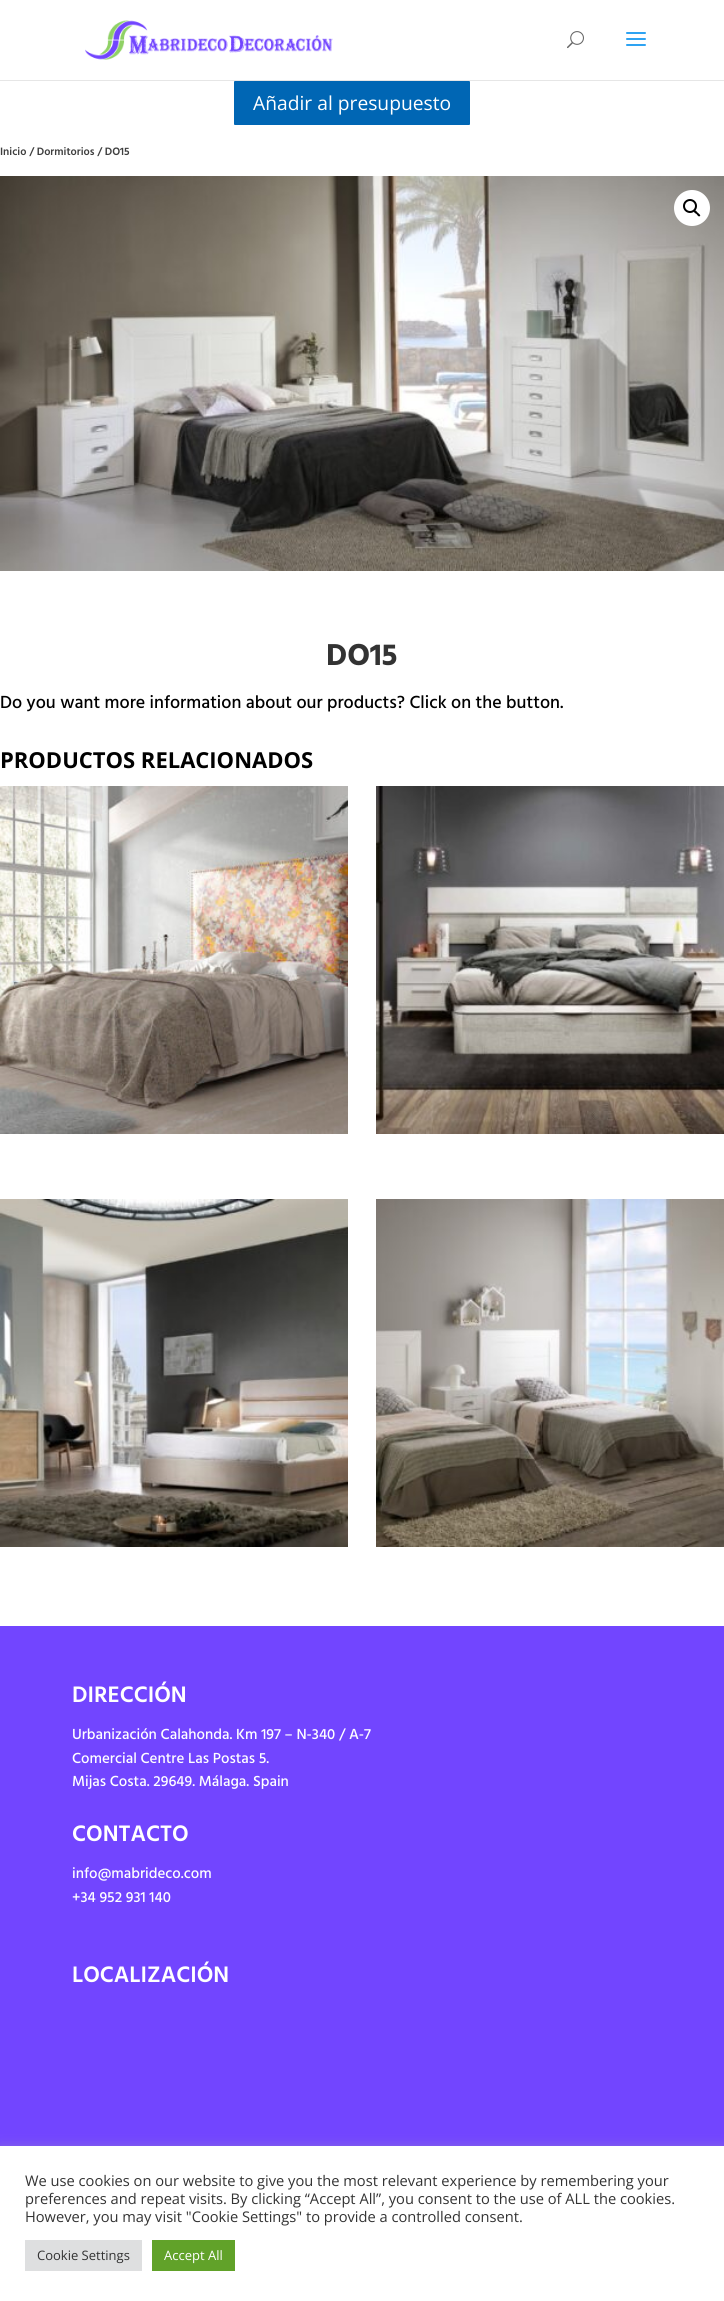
#include <cairo.h>
#include <math.h>
#include <stddef.h>

static cairo_t *ctx;

static void use_color(int r, int g, int b) {
    cairo_set_source_rgb(ctx, r / 255.0, g / 255.0, b / 255.0);
}

static void round_rect(double x, double y, double w, double h, double r) {
    cairo_new_sub_path(ctx);
    cairo_arc(ctx, x + w - r, y + h - r, r, 0, M_PI / 2);
    cairo_arc(ctx, x + r, y + h - r, r, M_PI / 2, M_PI);
    cairo_arc(ctx, x + r, y + r, r, M_PI, 1.5 * M_PI);
    cairo_arc(ctx, x + w - r, y + r, r, 1.5 * M_PI, 2 * M_PI);
    cairo_close_path(ctx);
}

static void shadow(double x, double y, double w, double h, double r, double blur, double alpha) {
    cairo_push_group_with_content(ctx, CAIRO_CONTENT_ALPHA);
    cairo_set_operator(ctx, CAIRO_OPERATOR_SOURCE);
    for (int i = 15; i >= -15 && fmin(w, h) + blur * i / 3 > 0; i -= 2) {
        double e = blur * i / 6;
        cairo_set_source_rgba(ctx, 0, 0, 0, alpha * erfc((i - 1) / 8.5) / 2);
        round_rect(x - e, y - e, w + 2 * e, h + 2 * e, fmax(0, fmin(r + e + blur * .6, fmin(w, h) / 2 + e)));
        cairo_fill(ctx);
    }
    cairo_pattern_t *soft = cairo_pop_group(ctx);
    cairo_mask(ctx, soft);
    cairo_pattern_destroy(soft);
}

static void picture(const char *path, double x, double y, double w, double h) {
    cairo_surface_t *image = cairo_image_surface_create_from_png(path);
    cairo_save(ctx);
    cairo_set_source_surface(ctx, image, x, y);
    cairo_rectangle(ctx, x, y, w, h);
    cairo_fill(ctx);
    cairo_restore(ctx);
    cairo_surface_destroy(image);
}

int main(void) {
    cairo_surface_t *surface = cairo_image_surface_create(CAIRO_FORMAT_RGB24, 724, 2301);
    ctx = cairo_create(surface);
    cairo_font_options_t *options = cairo_font_options_create();
    cairo_font_options_set_hint_metrics(options, CAIRO_HINT_METRICS_OFF);
    cairo_font_options_set_hint_style(options, CAIRO_HINT_STYLE_NONE);
    cairo_set_font_options(ctx, options);
    cairo_set_miter_limit(ctx, 4);
    use_color(255, 255, 255);
    cairo_paint(ctx);
    use_color(0, 102, 180);
    round_rect(233, 80, 238, 46, 2);
    cairo_fill_preserve(ctx);
    use_color(255, 255, 255);
    cairo_stroke(ctx);
    cairo_set_source_rgba(ctx, 0, 0, 0, 0.1);
    cairo_rectangle(ctx, 0, 80, 724, 1);
    cairo_fill(ctx);
    use_color(255, 255, 255);
    cairo_rectangle(ctx, 232, 79, 240, 1);
    cairo_fill(ctx);
    picture("img1.png", 85, 20, 248, 40);
    picture("img2.png", 567, 31, 17, 18);
    picture("img3.png", 626, 32, 20, 14);
    cairo_select_font_face(ctx, "Open Sans", CAIRO_FONT_SLANT_NORMAL, CAIRO_FONT_WEIGHT_NORMAL);
    cairo_set_font_size(ctx, 19.25);
    cairo_move_to(ctx, 253, 110);
    cairo_show_text(ctx, "Añadir al presupuesto");
    cairo_select_font_face(ctx, "Hind Guntur SemiBold", CAIRO_FONT_SLANT_NORMAL, CAIRO_FONT_WEIGHT_NORMAL);
    cairo_set_font_size(ctx, 11);
    use_color(63, 63, 63);
    cairo_move_to(ctx, 0, 155);
    cairo_show_text(ctx, "Inicio / Dormitorios / DO15");
    picture("img4.png", 0, 176, 724, 395);
    use_color(255, 255, 255);
    cairo_arc(ctx, 692, 208, 18, 0, 2 * M_PI);
    cairo_fill(ctx);
    cairo_arc(ctx, 690, 206, 6, 0, 2 * M_PI);
    use_color(0, 0, 0);
    cairo_stroke(ctx);
    cairo_new_path(ctx);
    cairo_move_to(ctx, 694, 210.5);
    cairo_curve_to(ctx, 695.5, 209.5, 697, 212, 697.5, 212.5);
    cairo_curve_to(ctx, 698.5, 213.5, 701, 215, 700, 216);
    cairo_curve_to(ctx, 698.5, 217.5, 697, 214.5, 696.5, 214);
    cairo_curve_to(ctx, 695.5, 213.5, 693, 212, 694, 210.5);
    cairo_close_path(ctx);
    cairo_fill(ctx);
    cairo_select_font_face(ctx, "Hind Guntur", CAIRO_FONT_SLANT_NORMAL, CAIRO_FONT_WEIGHT_BOLD);
    cairo_set_font_size(ctx, 31);
    use_color(51, 51, 51);
    cairo_move_to(ctx, 326, 665);
    cairo_show_text(ctx, "DO15");
    cairo_select_font_face(ctx, "Hind Guntur Medium", CAIRO_FONT_SLANT_NORMAL, CAIRO_FONT_WEIGHT_NORMAL);
    cairo_set_font_size(ctx, 18);
    use_color(0, 0, 0);
    cairo_move_to(ctx, 0, 708);
    cairo_show_text(ctx, "Do you want more information about our products? Click on the button.");
    cairo_select_font_face(ctx, "Open Sans", CAIRO_FONT_SLANT_NORMAL, CAIRO_FONT_WEIGHT_BOLD);
    cairo_set_font_size(ctx, 22);
    cairo_move_to(ctx, 0, 768);
    cairo_show_text(ctx, "PRODUCTOS RELACIONADOS");
    picture("img5.png", 0, 786, 348, 348);
    picture("img6.png", 376, 786, 348, 348);
    picture("img7.png", 0, 1199, 348, 348);
    picture("img8.png", 376, 1199, 348, 348);
    use_color(114, 69, 255);
    cairo_rectangle(ctx, 0, 1626, 724, 520);
    cairo_fill(ctx);
    cairo_select_font_face(ctx, "Hind Guntur SemiBold", CAIRO_FONT_SLANT_NORMAL, CAIRO_FONT_WEIGHT_NORMAL);
    cairo_set_font_size(ctx, 23);
    use_color(255, 255, 255);
    cairo_move_to(ctx, 72, 1702);
    cairo_show_text(ctx, "DIRECCIÓN");
    cairo_select_font_face(ctx, "Hind Guntur Medium", CAIRO_FONT_SLANT_NORMAL, CAIRO_FONT_WEIGHT_NORMAL);
    cairo_set_font_size(ctx, 15);
    cairo_move_to(ctx, 72, 1739);
    cairo_show_text(ctx, "Urbanización Calahonda. Km 197 – N-340 / A-7");
    cairo_move_to(ctx, 72, 1763);
    cairo_show_text(ctx, "Comercial Centre Las Postas 5.");
    cairo_move_to(ctx, 72, 1786);
    cairo_show_text(ctx, "Mijas Costa. 29649. Málaga. Spain");
    cairo_select_font_face(ctx, "Hind Guntur SemiBold", CAIRO_FONT_SLANT_NORMAL, CAIRO_FONT_WEIGHT_NORMAL);
    cairo_set_font_size(ctx, 23);
    cairo_move_to(ctx, 72, 1841);
    cairo_show_text(ctx, "CONTACTO");
    cairo_select_font_face(ctx, "Hind Guntur Medium", CAIRO_FONT_SLANT_NORMAL, CAIRO_FONT_WEIGHT_NORMAL);
    cairo_set_font_size(ctx, 15);
    cairo_move_to(ctx, 72, 1878);
    cairo_show_text(ctx, "info@mabrideco.com");
    cairo_move_to(ctx, 72, 1902);
    cairo_show_text(ctx, "+34 952 931 140");
    cairo_select_font_face(ctx, "Hind Guntur SemiBold", CAIRO_FONT_SLANT_NORMAL, CAIRO_FONT_WEIGHT_NORMAL);
    cairo_set_font_size(ctx, 23);
    cairo_move_to(ctx, 72, 1982);
    cairo_show_text(ctx, "LOCALIZACIÓN");
    use_color(172, 171, 171);
    shadow(0, 2145, 724, 155, 0, 5, 0.3);
    use_color(255, 255, 255);
    cairo_rectangle(ctx, 0, 2146, 724, 155);
    cairo_fill(ctx);
    cairo_select_font_face(ctx, "Open Sans", CAIRO_FONT_SLANT_NORMAL, CAIRO_FONT_WEIGHT_NORMAL);
    cairo_set_font_size(ctx, 14.65);
    use_color(51, 51, 51);
    cairo_move_to(ctx, 25, 2186);
    cairo_show_text(ctx, "We use cookies on our website to give you the most relevant experience by remembering your");
    cairo_move_to(ctx, 25, 2204);
    cairo_show_text(ctx, "preferences and repeat visits. By clicking “Accept All”, you consent to the use of ALL the cookies.");
    cairo_move_to(ctx, 25, 2222);
    cairo_show_text(ctx, "However, you may visit \"Cookie Settings\" to provide a controlled consent.");
    use_color(222, 223, 224);
    cairo_rectangle(ctx, 25, 2240, 117, 31);
    cairo_fill(ctx);
    cairo_set_font_size(ctx, 13);
    use_color(51, 51, 51);
    cairo_move_to(ctx, 37, 2260);
    cairo_show_text(ctx, "Cookie Settings");
    use_color(97, 162, 41);
    cairo_rectangle(ctx, 152, 2240, 83, 31);
    cairo_fill(ctx);
    use_color(255, 255, 255);
    cairo_move_to(ctx, 164, 2260);
    cairo_show_text(ctx, "Accept All");
    cairo_surface_write_to_png(surface, "result.png");
    cairo_font_options_destroy(options);
    cairo_destroy(ctx);
    cairo_surface_destroy(surface);
    return 0;
}
